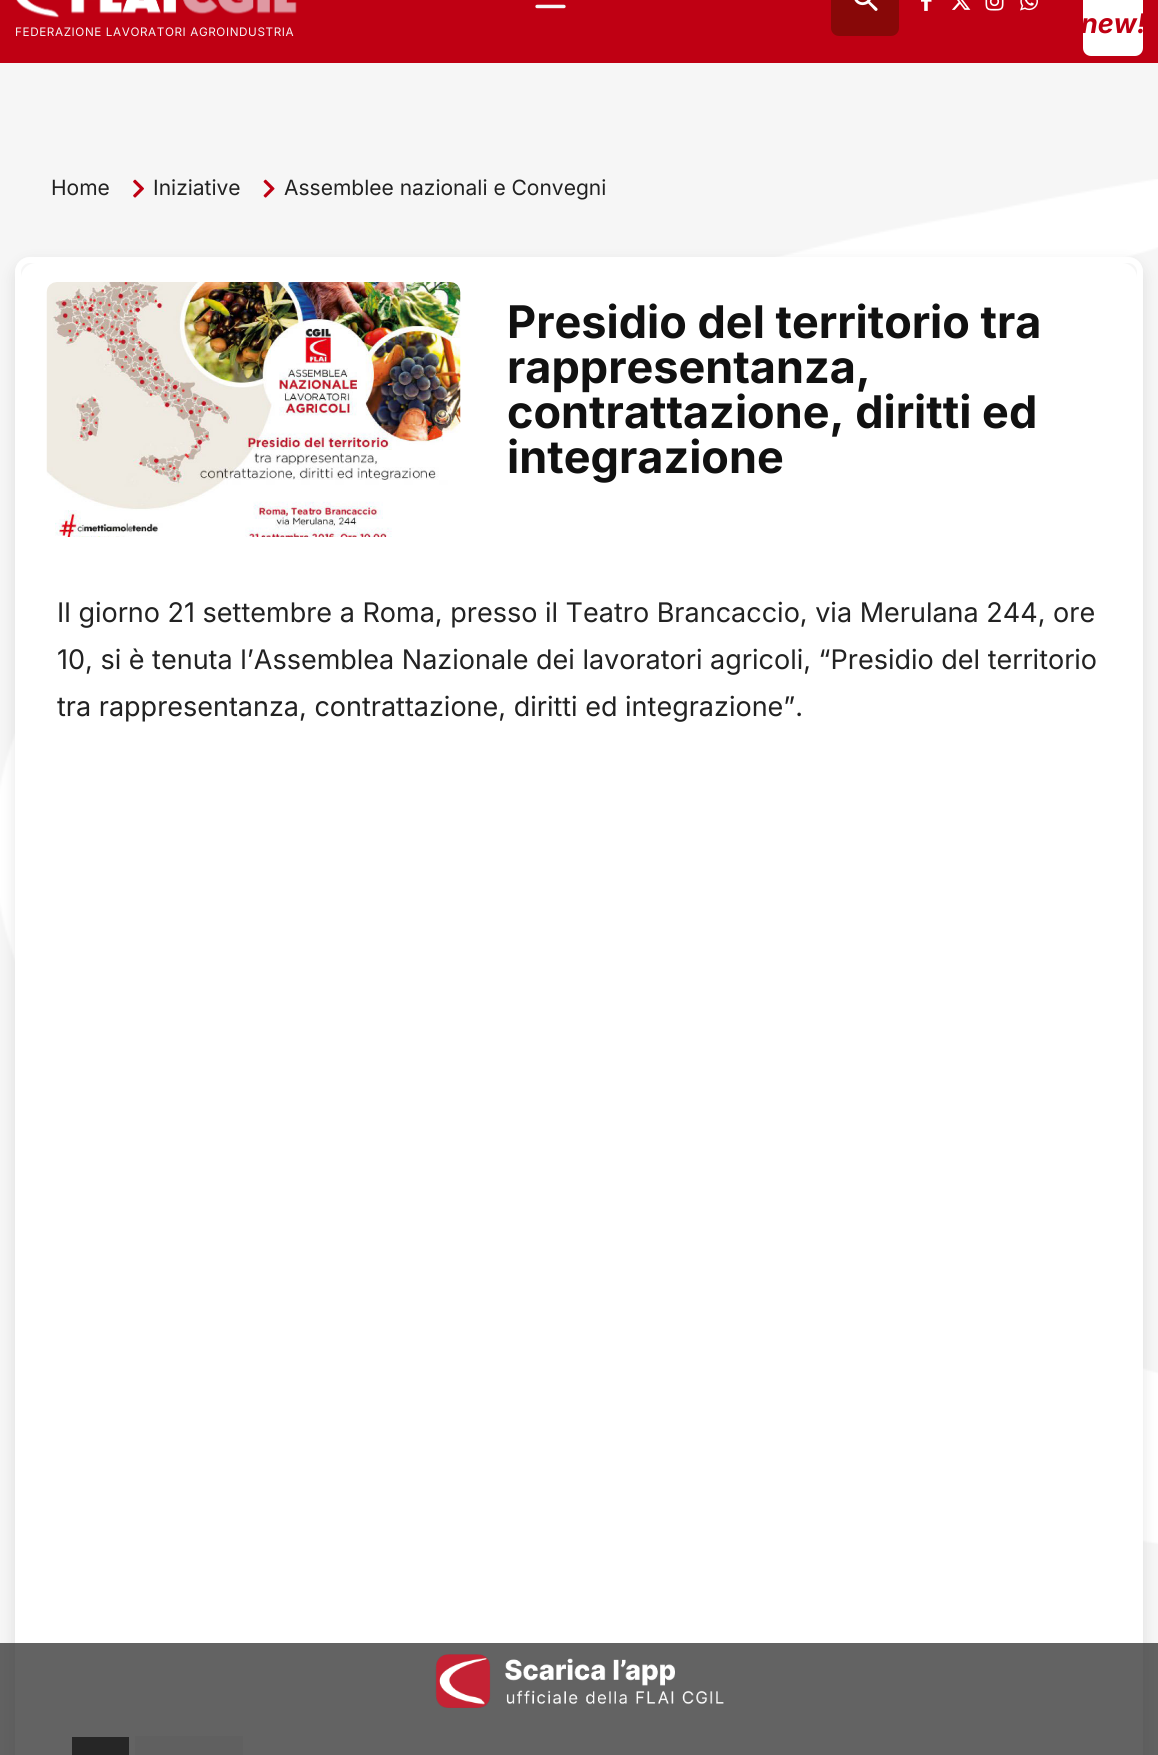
#include <cairo.h>
#include <math.h>
#include <stddef.h>

static cairo_t *ctx;

static void use_color(int r, int g, int b) {
    cairo_set_source_rgb(ctx, r / 255.0, g / 255.0, b / 255.0);
}

static void spaced_text(double x, double y, const char *s, double letter, double word) {
    cairo_move_to(ctx, x, y);
    while (*s) {
        char ch[5] = {0};
        int n = 0;
        do ch[n++] = *s++; while ((*s & 0xC0) == 0x80);
        cairo_show_text(ctx, ch);
        cairo_rel_move_to(ctx, letter + word * (*ch == ' '), 0);
    }
}

static void round_rect(double x, double y, double w, double h, double r) {
    cairo_new_sub_path(ctx);
    cairo_arc(ctx, x + w - r, y + h - r, r, 0, M_PI / 2);
    cairo_arc(ctx, x + r, y + h - r, r, M_PI / 2, M_PI);
    cairo_arc(ctx, x + r, y + r, r, M_PI, 1.5 * M_PI);
    cairo_arc(ctx, x + w - r, y + r, r, 1.5 * M_PI, 2 * M_PI);
    cairo_close_path(ctx);
}

static void shadow(double x, double y, double w, double h, double r, double blur, double alpha) {
    cairo_push_group_with_content(ctx, CAIRO_CONTENT_ALPHA);
    cairo_set_operator(ctx, CAIRO_OPERATOR_SOURCE);
    for (int i = 15; i >= -15 && fmin(w, h) + blur * i / 3 > 0; i -= 2) {
        double e = blur * i / 6;
        cairo_set_source_rgba(ctx, 0, 0, 0, alpha * erfc((i - 1) / 8.5) / 2);
        round_rect(x - e, y - e, w + 2 * e, h + 2 * e, fmax(0, fmin(r + e + blur * .6, fmin(w, h) / 2 + e)));
        cairo_fill(ctx);
    }
    cairo_pattern_t *soft = cairo_pop_group(ctx);
    cairo_mask(ctx, soft);
    cairo_pattern_destroy(soft);
}

static void picture(const char *path, double x, double y, double w, double h) {
    cairo_surface_t *image = cairo_image_surface_create_from_png(path);
    cairo_save(ctx);
    cairo_set_source_surface(ctx, image, x, y);
    cairo_rectangle(ctx, x, y, w, h);
    cairo_fill(ctx);
    cairo_restore(ctx);
    cairo_surface_destroy(image);
}

int main(void) {
    cairo_surface_t *surface = cairo_image_surface_create(CAIRO_FORMAT_RGB24, 1158, 1755);
    ctx = cairo_create(surface);
    cairo_font_options_t *options = cairo_font_options_create();
    cairo_font_options_set_hint_metrics(options, CAIRO_HINT_METRICS_OFF);
    cairo_font_options_set_hint_style(options, CAIRO_HINT_STYLE_NONE);
    cairo_set_font_options(ctx, options);
    cairo_set_miter_limit(ctx, 4);
    use_color(246, 246, 246);
    cairo_paint(ctx);
    use_color(191, 0, 19);
    cairo_rectangle(ctx, 0, 0, 1158, 63);
    cairo_fill(ctx);
    use_color(136, 8, 8);
    round_rect(831, -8, 68, 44, 8);
    cairo_fill(ctx);
    picture("img1.png", 854, 0, 24, 11);
    picture("img2.png", 921, 0, 11, 11);
    picture("img3.png", 952, 0, 19, 10);
    picture("img4.png", 985, 0, 19, 11);
    picture("img5.png", 1020, 0, 18, 11);
    picture("img6.png", 535, 4, 31, 5);
    picture("img7.png", 16, 0, 281, 18);
    cairo_select_font_face(ctx, "Inter", CAIRO_FONT_SLANT_NORMAL, CAIRO_FONT_WEIGHT_NORMAL);
    cairo_set_font_size(ctx, 11.7);
    use_color(246, 246, 246);
    spaced_text(15, 36, "FEDERAZIONE LAVORATORI AGROINDUSTRIA", 0.6, 0);
    use_color(255, 255, 255);
    round_rect(1083, -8, 60, 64, 8);
    cairo_fill(ctx);
    cairo_select_font_face(ctx, "Inter", CAIRO_FONT_SLANT_ITALIC, CAIRO_FONT_WEIGHT_BOLD);
    cairo_set_font_size(ctx, 27);
    use_color(191, 0, 19);
    cairo_move_to(ctx, 1081, 33);
    cairo_show_text(ctx, "new!");
    picture("img12.png", 0, 179, 1158, 1365);
    cairo_select_font_face(ctx, "Inter", CAIRO_FONT_SLANT_NORMAL, CAIRO_FONT_WEIGHT_NORMAL);
    cairo_set_font_size(ctx, 21);
    use_color(34, 34, 34);
    cairo_move_to(ctx, 51, 195);
    cairo_show_text(ctx, "Home");
    picture("img8.png", 133, 179, 11, 19);
    cairo_move_to(ctx, 153, 195);
    cairo_show_text(ctx, "Iniziative");
    picture("img9.png", 263, 179, 12, 19);
    cairo_move_to(ctx, 284, 195);
    cairo_show_text(ctx, "Assemblee nazionali e Convegni");
    cairo_save(ctx);
    cairo_set_fill_rule(ctx, CAIRO_FILL_RULE_EVEN_ODD);
    cairo_new_path(ctx);
    cairo_move_to(ctx, 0, 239);
    cairo_line_to(ctx, 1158, 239);
    cairo_line_to(ctx, 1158, 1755);
    cairo_line_to(ctx, 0, 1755);
    cairo_close_path(ctx);
    cairo_move_to(ctx, 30, 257);
    cairo_line_to(ctx, 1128, 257);
    cairo_curve_to(ctx, 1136.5, 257, 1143, 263.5, 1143, 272);
    cairo_line_to(ctx, 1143, 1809);
    cairo_curve_to(ctx, 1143, 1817.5, 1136.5, 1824, 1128, 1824);
    cairo_line_to(ctx, 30, 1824);
    cairo_curve_to(ctx, 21.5, 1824, 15, 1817.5, 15, 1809);
    cairo_line_to(ctx, 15, 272);
    cairo_curve_to(ctx, 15, 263.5, 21.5, 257, 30, 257);
    cairo_close_path(ctx);
    cairo_clip(ctx);
    use_color(0, 0, 0);
    shadow(15, 263, 1128, 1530, 15, 7.5, 0.1);
    cairo_restore(ctx);
    round_rect(18, 260, 1122, 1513, 12);
    use_color(255, 255, 255);
    cairo_set_line_width(ctx, 6);
    cairo_stroke(ctx);
    round_rect(21, 263, 1116, 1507, 15);
    cairo_fill(ctx);
    picture("img10.png", 46, 282, 415, 255);
    cairo_select_font_face(ctx, "Inter", CAIRO_FONT_SLANT_NORMAL, CAIRO_FONT_WEIGHT_BOLD);
    cairo_set_font_size(ctx, 45);
    use_color(17, 17, 17);
    cairo_move_to(ctx, 507, 338);
    cairo_show_text(ctx, "Presidio del territorio tra");
    cairo_move_to(ctx, 507, 383);
    cairo_show_text(ctx, "rappresentanza,");
    cairo_move_to(ctx, 507, 428);
    cairo_show_text(ctx, "contrattazione, diritti ed");
    cairo_move_to(ctx, 507, 473);
    cairo_show_text(ctx, "integrazione");
    cairo_select_font_face(ctx, "Inter", CAIRO_FONT_SLANT_NORMAL, CAIRO_FONT_WEIGHT_NORMAL);
    cairo_set_font_size(ctx, 27);
    use_color(34, 34, 34);
    cairo_move_to(ctx, 57, 622);
    cairo_show_text(ctx, "Il giorno 21 settembre a Roma, presso il Teatro Brancaccio, via Merulana 244, ore");
    cairo_move_to(ctx, 57, 669);
    cairo_show_text(ctx, "10, si è tenuta l’Assemblea Nazionale dei lavoratori agricoli, “Presidio del territorio");
    cairo_move_to(ctx, 57, 716);
    cairo_show_text(ctx, "tra rappresentanza, contrattazione, diritti ed integrazione”.");
    use_color(0, 0, 0);
    cairo_rectangle(ctx, 72, 1737, 57, 18);
    cairo_fill(ctx);
    use_color(244, 244, 244);
    cairo_rectangle(ctx, 135, 1736, 108, 19);
    cairo_fill(ctx);
    cairo_set_source_rgba(ctx, 0.2, 0.2, 0.2, 0.76);
    cairo_rectangle(ctx, 0, 1643, 1158, 112);
    cairo_fill(ctx);
    picture("img11.png", 435, 1654, 289, 54);
    cairo_surface_write_to_png(surface, "result.png");
    cairo_font_options_destroy(options);
    cairo_destroy(ctx);
    cairo_surface_destroy(surface);
    return 0;
}
